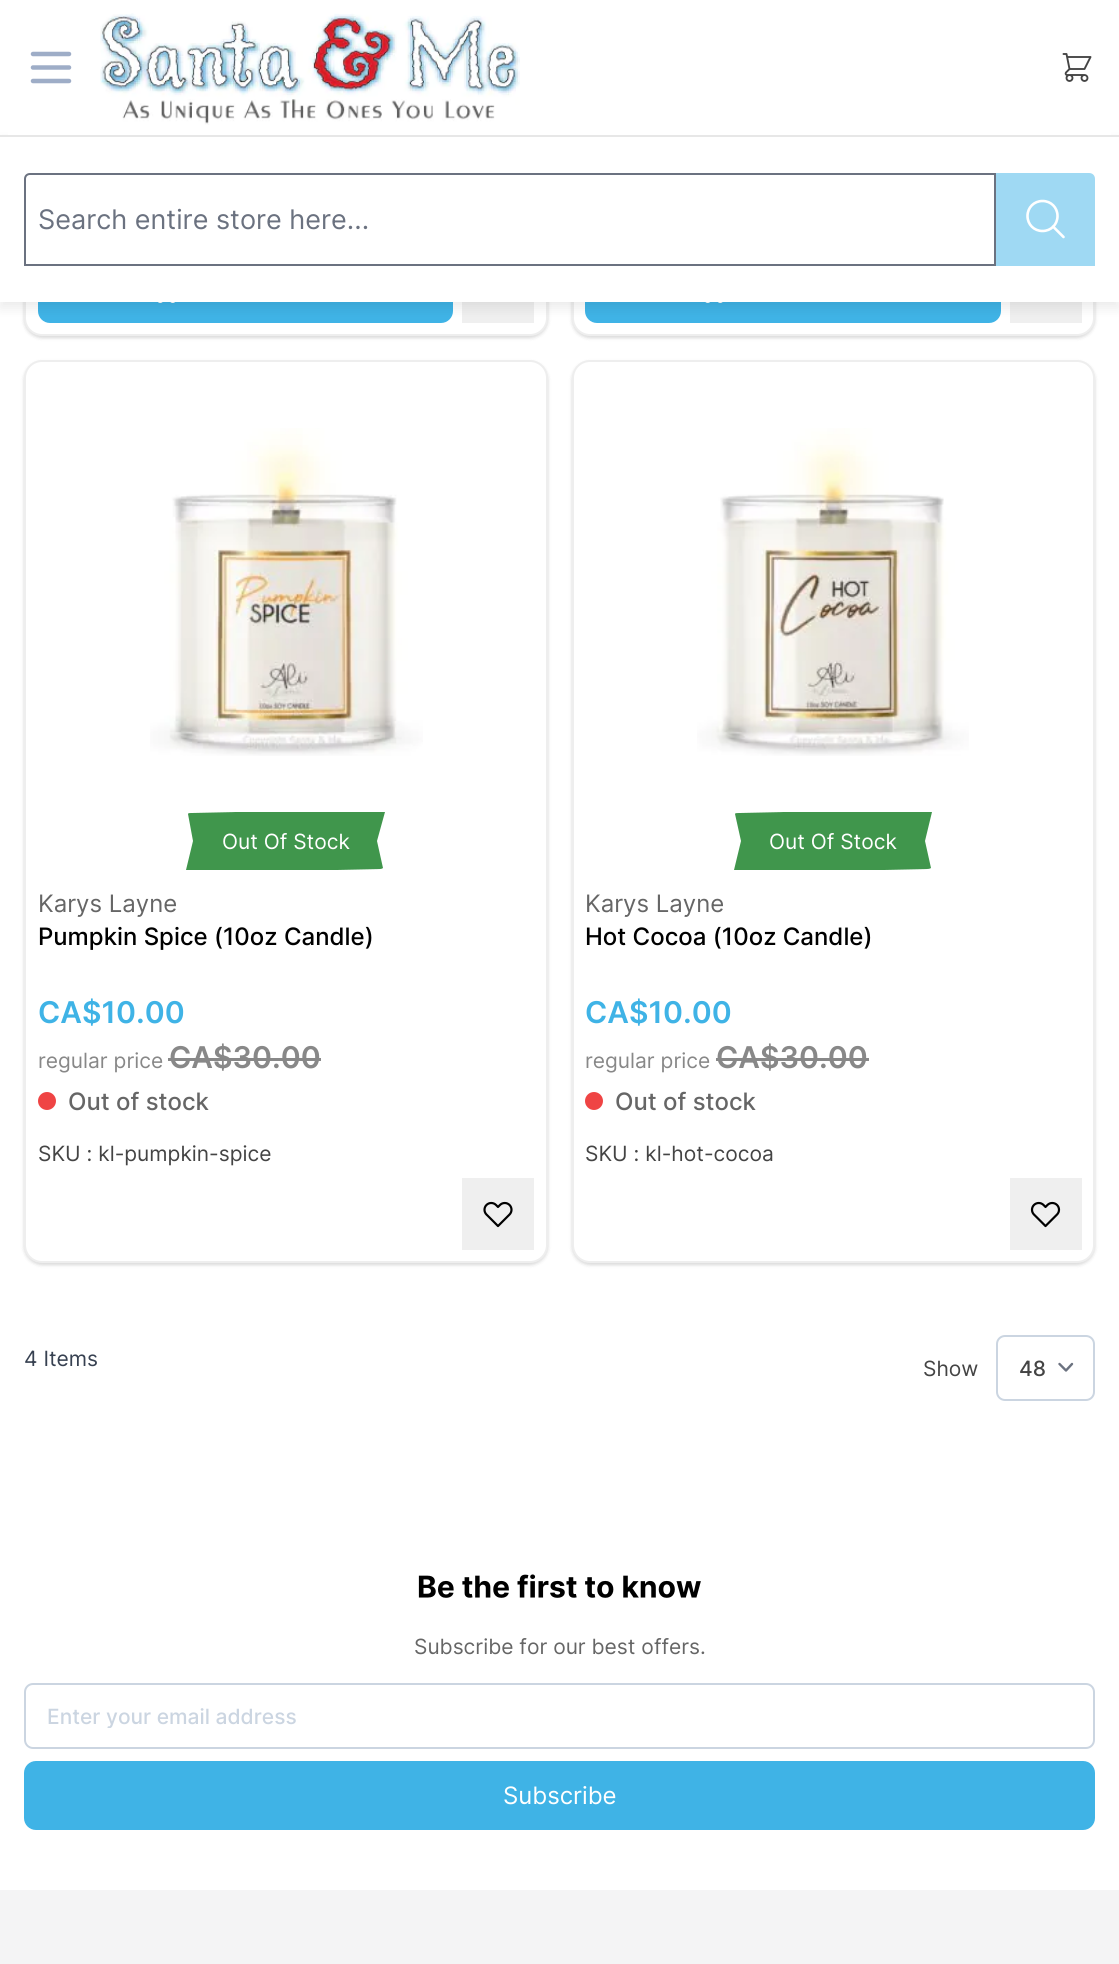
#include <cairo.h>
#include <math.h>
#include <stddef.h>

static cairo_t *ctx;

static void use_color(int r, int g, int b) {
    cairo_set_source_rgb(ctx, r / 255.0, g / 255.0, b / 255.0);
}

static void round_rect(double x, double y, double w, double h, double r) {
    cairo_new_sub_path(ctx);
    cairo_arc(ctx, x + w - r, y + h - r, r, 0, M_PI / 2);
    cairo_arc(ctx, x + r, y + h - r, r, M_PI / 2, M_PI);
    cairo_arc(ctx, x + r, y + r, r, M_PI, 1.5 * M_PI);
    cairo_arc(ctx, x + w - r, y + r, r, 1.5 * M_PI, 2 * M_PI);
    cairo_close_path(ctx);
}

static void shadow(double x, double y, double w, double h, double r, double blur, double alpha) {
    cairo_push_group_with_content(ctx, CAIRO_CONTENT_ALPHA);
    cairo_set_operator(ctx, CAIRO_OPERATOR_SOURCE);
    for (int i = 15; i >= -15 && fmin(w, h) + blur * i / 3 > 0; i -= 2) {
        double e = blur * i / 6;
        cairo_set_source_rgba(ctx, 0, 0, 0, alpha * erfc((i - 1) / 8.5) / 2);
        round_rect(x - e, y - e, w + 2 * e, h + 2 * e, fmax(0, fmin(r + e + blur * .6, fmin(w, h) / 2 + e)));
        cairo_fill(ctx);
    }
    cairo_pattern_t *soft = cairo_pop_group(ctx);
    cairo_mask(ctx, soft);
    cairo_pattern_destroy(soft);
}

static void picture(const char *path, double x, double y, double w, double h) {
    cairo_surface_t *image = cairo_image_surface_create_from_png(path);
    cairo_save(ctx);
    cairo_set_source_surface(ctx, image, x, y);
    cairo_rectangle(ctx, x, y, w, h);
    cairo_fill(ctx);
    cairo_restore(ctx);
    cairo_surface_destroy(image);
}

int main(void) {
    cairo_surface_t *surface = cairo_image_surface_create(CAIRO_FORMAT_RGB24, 1119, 1964);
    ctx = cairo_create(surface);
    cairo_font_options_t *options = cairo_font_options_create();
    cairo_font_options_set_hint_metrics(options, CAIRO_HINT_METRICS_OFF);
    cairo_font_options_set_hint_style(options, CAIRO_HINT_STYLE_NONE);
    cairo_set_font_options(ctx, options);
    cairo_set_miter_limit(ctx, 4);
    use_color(255, 255, 255);
    cairo_paint(ctx);
    use_color(0, 0, 0);
    shadow(24, -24, 524, 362, 18, 2, 0.1);
    shadow(24, -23, 524, 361, 18, 1.5, 0.06);
    use_color(255, 255, 255);
    round_rect(25, -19, 522, 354, 17);
    cairo_fill_preserve(ctx);
    use_color(238, 238, 238);
    cairo_stroke(ctx);
    use_color(63, 179, 230);
    round_rect(39, 261, 413, 61, 11);
    cairo_fill_preserve(ctx);
    cairo_stroke(ctx);
    picture("img3.png", 158, 302, 17, 1);
    use_color(239, 239, 239);
    cairo_rectangle(ctx, 462, 302, 72, 21);
    cairo_fill(ctx);
    use_color(0, 0, 0);
    shadow(572, -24, 523, 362, 18, 2, 0.1);
    shadow(572, -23, 523, 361, 18, 1.5, 0.06);
    use_color(255, 255, 255);
    round_rect(573, -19, 521, 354, 17);
    cairo_fill_preserve(ctx);
    use_color(238, 238, 238);
    cairo_stroke(ctx);
    use_color(63, 179, 230);
    round_rect(586, 261, 414, 61, 11);
    cairo_fill_preserve(ctx);
    cairo_stroke(ctx);
    picture("img4.png", 705, 302, 18, 1);
    use_color(239, 239, 239);
    cairo_rectangle(ctx, 1010, 302, 72, 21);
    cairo_fill(ctx);
    use_color(0, 0, 0);
    shadow(0, 141, 1119, 167, 0, 6, 0.08);
    use_color(255, 255, 255);
    cairo_rectangle(ctx, 8, 0, 1103, 135);
    cairo_fill(ctx);
    cairo_new_path(ctx);
    cairo_move_to(ctx, 33, 54);
    cairo_line_to(ctx, 69, 54);
    cairo_move_to(ctx, 33, 67.5);
    cairo_line_to(ctx, 69, 67.5);
    cairo_move_to(ctx, 33, 81);
    cairo_line_to(ctx, 69, 81);
    use_color(158, 173, 199);
    cairo_set_line_width(ctx, 4.5);
    cairo_set_line_cap(ctx, CAIRO_LINE_CAP_ROUND);
    cairo_set_line_join(ctx, CAIRO_LINE_JOIN_ROUND);
    cairo_stroke(ctx);
    picture("img1.png", 100, 13, 420, 112);
    picture("img2.png", 1062, 53, 30, 29);
    use_color(255, 255, 255);
    cairo_rectangle(ctx, 0, 137, 1119, 165);
    cairo_fill(ctx);
    use_color(231, 231, 231);
    cairo_rectangle(ctx, 0, 135, 1119, 2);
    cairo_fill(ctx);
    cairo_new_path(ctx);
    cairo_move_to(ctx, 30, 174);
    cairo_line_to(ctx, 995, 174);
    cairo_line_to(ctx, 995, 265);
    cairo_line_to(ctx, 25, 265);
    cairo_line_to(ctx, 25, 179);
    cairo_curve_to(ctx, 25, 176, 27, 174, 30, 174);
    cairo_close_path(ctx);
    use_color(107, 114, 128);
    cairo_set_line_width(ctx, 2);
    cairo_set_line_cap(ctx, CAIRO_LINE_CAP_BUTT);
    cairo_set_line_join(ctx, CAIRO_LINE_JOIN_MITER);
    cairo_stroke(ctx);
    cairo_select_font_face(ctx, "Inter", CAIRO_FONT_SLANT_NORMAL, CAIRO_FONT_WEIGHT_NORMAL);
    cairo_set_font_size(ctx, 27);
    cairo_move_to(ctx, 38, 229);
    cairo_show_text(ctx, "Search entire store here...");
    use_color(159, 217, 243);
    cairo_new_path(ctx);
    cairo_move_to(ctx, 997, 174);
    cairo_line_to(ctx, 1089, 174);
    cairo_curve_to(ctx, 1092, 174, 1094, 176, 1094, 179);
    cairo_line_to(ctx, 1094, 265);
    cairo_line_to(ctx, 997, 265);
    cairo_close_path(ctx);
    cairo_fill_preserve(ctx);
    cairo_stroke(ctx);
    cairo_new_path(ctx);
    cairo_move_to(ctx, 1042.5, 231);
    cairo_curve_to(ctx, 1051, 231, 1057.5, 224.5, 1057.5, 216);
    cairo_curve_to(ctx, 1057.5, 207.5, 1051, 201, 1042.5, 201);
    cairo_curve_to(ctx, 1034, 201, 1027.5, 207.5, 1027.5, 216);
    cairo_curve_to(ctx, 1027.5, 224.5, 1034, 231, 1042.5, 231);
    cairo_close_path(ctx);
    cairo_move_to(ctx, 1053, 226.5);
    cairo_line_to(ctx, 1063.5, 237);
    use_color(255, 255, 255);
    cairo_set_line_width(ctx, 2.6);
    cairo_set_line_cap(ctx, CAIRO_LINE_CAP_ROUND);
    cairo_set_line_join(ctx, CAIRO_LINE_JOIN_ROUND);
    cairo_stroke(ctx);
    use_color(0, 0, 0);
    shadow(24, 362, 524, 903, 18, 2, 0.1);
    shadow(24, 362, 524, 903, 18, 1.5, 0.06);
    use_color(255, 255, 255);
    round_rect(25, 361, 522, 901, 17);
    cairo_fill_preserve(ctx);
    use_color(238, 238, 238);
    cairo_set_line_width(ctx, 2);
    cairo_set_line_cap(ctx, CAIRO_LINE_CAP_BUTT);
    cairo_set_line_join(ctx, CAIRO_LINE_JOIN_MITER);
    cairo_stroke(ctx);
    picture("img5.png", 150, 428, 273, 328);
    use_color(64, 150, 76);
    cairo_new_path(ctx);
    cairo_move_to(ctx, 188, 814);
    cairo_line_to(ctx, 193, 841);
    cairo_line_to(ctx, 186, 870);
    cairo_line_to(ctx, 336, 870);
    cairo_line_to(ctx, 380, 869);
    cairo_curve_to(ctx, 380, 869, 382, 869, 383, 868);
    cairo_line_to(ctx, 377, 841);
    cairo_line_to(ctx, 385, 812);
    cairo_line_to(ctx, 235, 812);
    cairo_line_to(ctx, 191, 813);
    cairo_curve_to(ctx, 190, 813, 188, 813, 188, 814);
    cairo_close_path(ctx);
    cairo_fill(ctx);
    cairo_set_font_size(ctx, 21);
    use_color(255, 255, 255);
    cairo_move_to(ctx, 222, 849);
    cairo_show_text(ctx, "Out Of Stock");
    cairo_set_font_size(ctx, 24);
    use_color(102, 102, 102);
    cairo_move_to(ctx, 38, 912);
    cairo_show_text(ctx, "Karys Layne");
    cairo_select_font_face(ctx, "Inter Medium", CAIRO_FONT_SLANT_NORMAL, CAIRO_FONT_WEIGHT_NORMAL);
    use_color(0, 0, 0);
    cairo_move_to(ctx, 38, 945);
    cairo_show_text(ctx, "Pumpkin Spice (10oz Candle)");
    cairo_select_font_face(ctx, "Inter SemiBold", CAIRO_FONT_SLANT_NORMAL, CAIRO_FONT_WEIGHT_NORMAL);
    cairo_set_font_size(ctx, 30);
    use_color(63, 179, 230);
    cairo_move_to(ctx, 38, 1023);
    cairo_show_text(ctx, "CA$10.00");
    cairo_select_font_face(ctx, "Inter", CAIRO_FONT_SLANT_NORMAL, CAIRO_FONT_WEIGHT_NORMAL);
    cairo_set_font_size(ctx, 21);
    use_color(136, 136, 136);
    cairo_move_to(ctx, 38, 1068);
    cairo_show_text(ctx, "regular price");
    cairo_select_font_face(ctx, "Inter SemiBold", CAIRO_FONT_SLANT_NORMAL, CAIRO_FONT_WEIGHT_NORMAL);
    cairo_set_font_size(ctx, 30);
    cairo_move_to(ctx, 169, 1068);
    cairo_show_text(ctx, "CA$30.00");
    cairo_rectangle(ctx, 168, 1058, 153, 3);
    cairo_fill(ctx);
    use_color(239, 68, 68);
    cairo_arc(ctx, 47, 1101, 9, 0, 2 * M_PI);
    cairo_fill(ctx);
    cairo_select_font_face(ctx, "Inter Medium", CAIRO_FONT_SLANT_NORMAL, CAIRO_FONT_WEIGHT_NORMAL);
    cairo_set_font_size(ctx, 24);
    use_color(102, 102, 102);
    cairo_move_to(ctx, 68, 1110);
    cairo_show_text(ctx, "Out of stock");
    cairo_select_font_face(ctx, "Inter", CAIRO_FONT_SLANT_NORMAL, CAIRO_FONT_WEIGHT_NORMAL);
    cairo_set_font_size(ctx, 21);
    use_color(68, 68, 68);
    cairo_move_to(ctx, 38, 1161);
    cairo_show_text(ctx, "SKU : kl-pumpkin-spice");
    use_color(239, 239, 239);
    cairo_rectangle(ctx, 462, 1178, 72, 72);
    cairo_fill(ctx);
    picture("img6.png", 483, 1201, 30, 27);
    use_color(0, 0, 0);
    shadow(572, 362, 523, 903, 18, 2, 0.1);
    shadow(572, 362, 523, 903, 18, 1.5, 0.06);
    use_color(255, 255, 255);
    round_rect(573, 361, 521, 901, 17);
    cairo_fill_preserve(ctx);
    use_color(238, 238, 238);
    cairo_stroke(ctx);
    picture("img7.png", 697, 428, 272, 328);
    use_color(64, 150, 76);
    cairo_new_path(ctx);
    cairo_move_to(ctx, 735, 814);
    cairo_line_to(ctx, 741, 841);
    cairo_line_to(ctx, 734, 870);
    cairo_line_to(ctx, 883, 870);
    cairo_line_to(ctx, 927, 869);
    cairo_curve_to(ctx, 927, 869, 930, 869, 931, 868);
    cairo_line_to(ctx, 925, 841);
    cairo_line_to(ctx, 932, 812);
    cairo_line_to(ctx, 783, 812);
    cairo_line_to(ctx, 739, 813);
    cairo_curve_to(ctx, 737, 813, 735, 813, 735, 814);
    cairo_close_path(ctx);
    cairo_fill(ctx);
    use_color(255, 255, 255);
    cairo_move_to(ctx, 769, 849);
    cairo_show_text(ctx, "Out Of Stock");
    cairo_set_font_size(ctx, 24);
    use_color(102, 102, 102);
    cairo_move_to(ctx, 585, 912);
    cairo_show_text(ctx, "Karys Layne");
    cairo_select_font_face(ctx, "Inter Medium", CAIRO_FONT_SLANT_NORMAL, CAIRO_FONT_WEIGHT_NORMAL);
    use_color(0, 0, 0);
    cairo_move_to(ctx, 585, 945);
    cairo_show_text(ctx, "Hot Cocoa (10oz Candle)");
    cairo_select_font_face(ctx, "Inter SemiBold", CAIRO_FONT_SLANT_NORMAL, CAIRO_FONT_WEIGHT_NORMAL);
    cairo_set_font_size(ctx, 30);
    use_color(63, 179, 230);
    cairo_move_to(ctx, 585, 1023);
    cairo_show_text(ctx, "CA$10.00");
    cairo_select_font_face(ctx, "Inter", CAIRO_FONT_SLANT_NORMAL, CAIRO_FONT_WEIGHT_NORMAL);
    cairo_set_font_size(ctx, 21);
    use_color(136, 136, 136);
    cairo_move_to(ctx, 585, 1068);
    cairo_show_text(ctx, "regular price");
    cairo_select_font_face(ctx, "Inter SemiBold", CAIRO_FONT_SLANT_NORMAL, CAIRO_FONT_WEIGHT_NORMAL);
    cairo_set_font_size(ctx, 30);
    cairo_move_to(ctx, 716, 1068);
    cairo_show_text(ctx, "CA$30.00");
    cairo_rectangle(ctx, 716, 1058, 153, 3);
    cairo_fill(ctx);
    use_color(239, 68, 68);
    cairo_arc(ctx, 594, 1101, 9, 0, 2 * M_PI);
    cairo_fill(ctx);
    cairo_select_font_face(ctx, "Inter Medium", CAIRO_FONT_SLANT_NORMAL, CAIRO_FONT_WEIGHT_NORMAL);
    cairo_set_font_size(ctx, 24);
    use_color(102, 102, 102);
    cairo_move_to(ctx, 615, 1110);
    cairo_show_text(ctx, "Out of stock");
    cairo_select_font_face(ctx, "Inter", CAIRO_FONT_SLANT_NORMAL, CAIRO_FONT_WEIGHT_NORMAL);
    cairo_set_font_size(ctx, 21);
    use_color(68, 68, 68);
    cairo_move_to(ctx, 585, 1161);
    cairo_show_text(ctx, "SKU : kl-hot-cocoa");
    use_color(239, 239, 239);
    cairo_rectangle(ctx, 1010, 1178, 72, 72);
    cairo_fill(ctx);
    picture("img8.png", 1030, 1201, 31, 27);
    use_color(55, 65, 81);
    cairo_move_to(ctx, 24, 1366);
    cairo_show_text(ctx, "4 Items");
    use_color(68, 68, 68);
    cairo_move_to(ctx, 923, 1376);
    cairo_show_text(ctx, "Show");
    cairo_new_path(ctx);
    cairo_move_to(ctx, 1059.5, 1364);
    cairo_line_to(ctx, 1066, 1370.5);
    cairo_line_to(ctx, 1072, 1364);
    use_color(107, 114, 128);
    cairo_set_line_width(ctx, 2.4);
    cairo_set_line_cap(ctx, CAIRO_LINE_CAP_ROUND);
    cairo_set_line_join(ctx, CAIRO_LINE_JOIN_ROUND);
    cairo_stroke(ctx);
    round_rect(997, 1336, 97, 64, 8);
    use_color(203, 213, 225);
    cairo_set_line_width(ctx, 2);
    cairo_set_line_cap(ctx, CAIRO_LINE_CAP_BUTT);
    cairo_set_line_join(ctx, CAIRO_LINE_JOIN_MITER);
    cairo_stroke(ctx);
    cairo_select_font_face(ctx, "Inter Medium", CAIRO_FONT_SLANT_NORMAL, CAIRO_FONT_WEIGHT_NORMAL);
    use_color(68, 68, 68);
    cairo_move_to(ctx, 1019, 1376);
    cairo_show_text(ctx, "48");
    picture("img9.png", 418, 1574, 283, 24);
    cairo_select_font_face(ctx, "Inter", CAIRO_FONT_SLANT_NORMAL, CAIRO_FONT_WEIGHT_NORMAL);
    use_color(102, 102, 102);
    cairo_move_to(ctx, 414, 1654);
    cairo_show_text(ctx, "Subscribe for our best offers.");
    round_rect(25, 1684, 1069, 64, 8);
    use_color(203, 213, 225);
    cairo_stroke(ctx);
    cairo_save(ctx);
    cairo_rectangle(ctx, 47, 1703, 1026, 25);
    cairo_clip(ctx);
    cairo_select_font_face(ctx, "Inter Medium", CAIRO_FONT_SLANT_NORMAL, CAIRO_FONT_WEIGHT_NORMAL);
    cairo_move_to(ctx, 47, 1724);
    cairo_show_text(ctx, "Enter your email address");
    cairo_restore(ctx);
    use_color(63, 179, 230);
    round_rect(25, 1762, 1069, 67, 11);
    cairo_fill_preserve(ctx);
    cairo_stroke(ctx);
    cairo_set_font_size(ctx, 24);
    use_color(255, 255, 255);
    cairo_move_to(ctx, 503, 1804);
    cairo_show_text(ctx, "Subscribe");
    use_color(244, 244, 245);
    cairo_rectangle(ctx, 0, 1890, 1119, 74);
    cairo_fill(ctx);
    cairo_surface_write_to_png(surface, "result.png");
    cairo_font_options_destroy(options);
    cairo_destroy(ctx);
    cairo_surface_destroy(surface);
    return 0;
}
